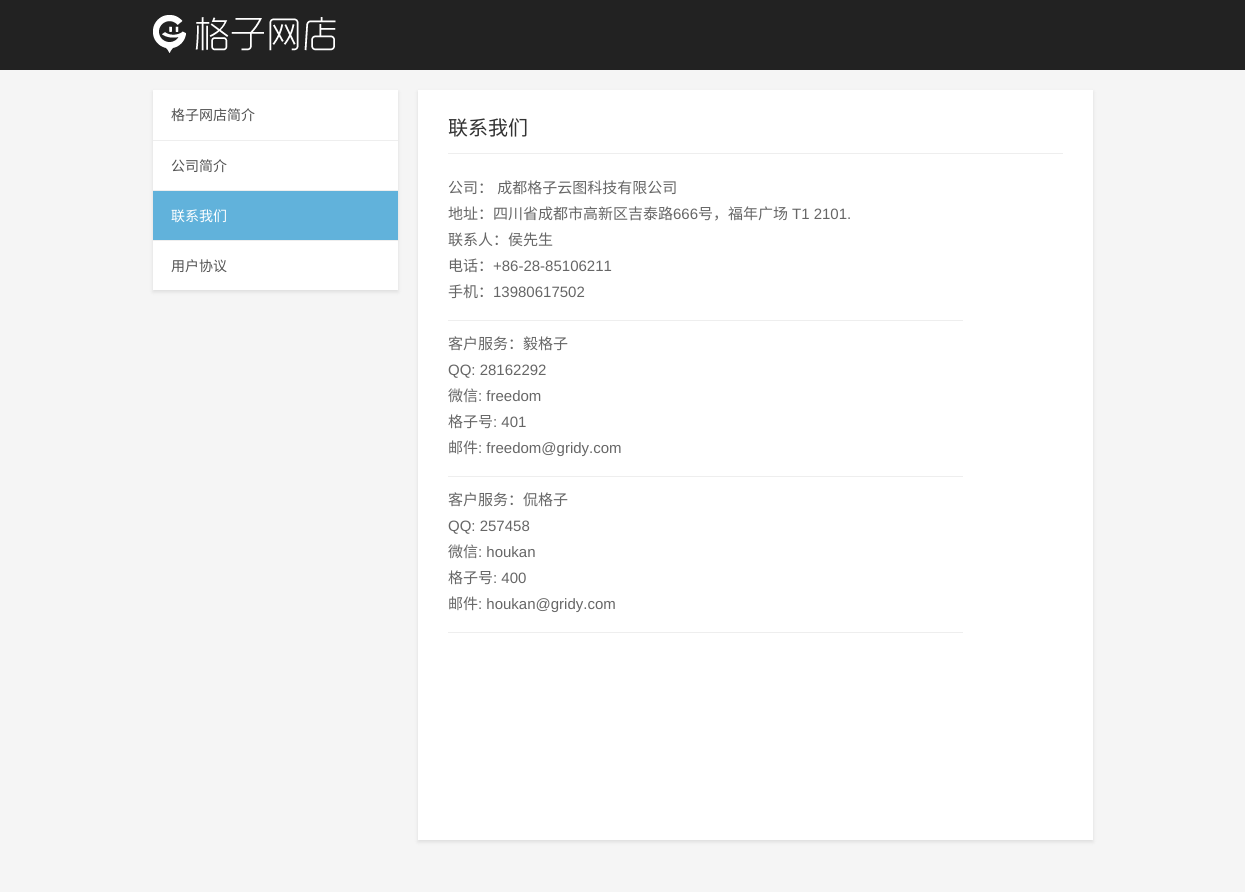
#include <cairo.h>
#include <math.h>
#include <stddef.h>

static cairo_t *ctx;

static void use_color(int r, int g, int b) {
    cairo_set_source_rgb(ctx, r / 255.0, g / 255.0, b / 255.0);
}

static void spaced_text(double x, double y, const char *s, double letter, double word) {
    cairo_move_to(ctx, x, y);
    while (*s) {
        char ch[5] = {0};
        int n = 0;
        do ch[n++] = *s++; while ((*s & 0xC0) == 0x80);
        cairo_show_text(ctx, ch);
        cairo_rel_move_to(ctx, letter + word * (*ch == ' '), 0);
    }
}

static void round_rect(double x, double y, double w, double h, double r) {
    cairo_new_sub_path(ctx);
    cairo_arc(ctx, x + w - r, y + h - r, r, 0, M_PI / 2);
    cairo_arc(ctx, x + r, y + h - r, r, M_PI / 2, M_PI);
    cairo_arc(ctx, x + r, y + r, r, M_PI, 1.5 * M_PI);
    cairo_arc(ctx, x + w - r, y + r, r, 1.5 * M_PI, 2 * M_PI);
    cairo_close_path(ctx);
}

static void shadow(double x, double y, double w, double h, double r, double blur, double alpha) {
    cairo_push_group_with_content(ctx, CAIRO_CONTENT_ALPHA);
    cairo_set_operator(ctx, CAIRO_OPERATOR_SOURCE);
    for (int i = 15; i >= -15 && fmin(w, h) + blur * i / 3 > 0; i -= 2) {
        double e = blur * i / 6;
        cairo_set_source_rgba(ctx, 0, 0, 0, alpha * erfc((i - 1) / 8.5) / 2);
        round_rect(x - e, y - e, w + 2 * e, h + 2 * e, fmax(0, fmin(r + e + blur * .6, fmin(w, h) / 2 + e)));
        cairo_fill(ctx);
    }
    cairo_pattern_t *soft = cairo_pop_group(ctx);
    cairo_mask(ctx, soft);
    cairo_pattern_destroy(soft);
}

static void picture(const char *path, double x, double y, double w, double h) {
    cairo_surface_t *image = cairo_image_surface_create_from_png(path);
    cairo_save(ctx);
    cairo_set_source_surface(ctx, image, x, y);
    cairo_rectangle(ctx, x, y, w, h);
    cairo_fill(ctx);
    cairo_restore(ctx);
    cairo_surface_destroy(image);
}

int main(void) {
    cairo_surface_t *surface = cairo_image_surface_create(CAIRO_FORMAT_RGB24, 1245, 892);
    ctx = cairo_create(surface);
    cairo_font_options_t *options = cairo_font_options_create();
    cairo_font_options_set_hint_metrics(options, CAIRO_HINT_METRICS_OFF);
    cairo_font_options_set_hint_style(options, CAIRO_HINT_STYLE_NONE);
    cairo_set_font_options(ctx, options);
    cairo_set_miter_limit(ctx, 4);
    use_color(245, 245, 245);
    cairo_paint(ctx);
    use_color(34, 34, 34);
    cairo_rectangle(ctx, 0, 0, 1245, 70);
    cairo_fill(ctx);
    picture("img1.png", 153, 15, 183, 38);
    use_color(0, 0, 0);
    shadow(153, 92, 245, 200, 0, 2, 0.1);
    use_color(255, 255, 255);
    cairo_rectangle(ctx, 153, 90, 245, 200);
    cairo_fill(ctx);
    cairo_select_font_face(ctx, "Noto Sans CJK SC", CAIRO_FONT_SLANT_NORMAL, CAIRO_FONT_WEIGHT_NORMAL);
    cairo_set_font_size(ctx, 14);
    use_color(83, 83, 83);
    cairo_move_to(ctx, 171, 120);
    cairo_show_text(ctx, "格子网店简介");
    use_color(238, 238, 238);
    cairo_rectangle(ctx, 153, 140, 245, 1);
    cairo_fill(ctx);
    use_color(83, 83, 83);
    cairo_move_to(ctx, 171, 171);
    cairo_show_text(ctx, "公司简介");
    use_color(97, 178, 219);
    cairo_rectangle(ctx, 153, 191, 245, 49);
    cairo_fill(ctx);
    use_color(238, 238, 238);
    cairo_rectangle(ctx, 153, 190, 245, 1);
    cairo_fill(ctx);
    use_color(255, 255, 255);
    cairo_move_to(ctx, 171, 221);
    cairo_show_text(ctx, "联系我们");
    use_color(238, 238, 238);
    cairo_rectangle(ctx, 153, 240, 245, 1);
    cairo_fill(ctx);
    use_color(83, 83, 83);
    cairo_move_to(ctx, 171, 271);
    cairo_show_text(ctx, "用户协议");
    use_color(0, 0, 0);
    shadow(418, 92, 675, 750, 0, 2, 0.1);
    use_color(255, 255, 255);
    cairo_rectangle(ctx, 418, 90, 675, 750);
    cairo_fill(ctx);
    use_color(238, 238, 238);
    cairo_rectangle(ctx, 448, 153, 615, 1);
    cairo_fill(ctx);
    cairo_set_font_size(ctx, 20);
    use_color(51, 51, 51);
    cairo_move_to(ctx, 448, 135);
    cairo_show_text(ctx, "联系我们");
    use_color(238, 238, 238);
    cairo_rectangle(ctx, 448, 320, 515, 1);
    cairo_fill(ctx);
    cairo_set_font_size(ctx, 15);
    use_color(102, 102, 102);
    spaced_text(448, 193, "公司： 成都格子云图科技有限公司", 0, 1);
    cairo_move_to(ctx, 448, 219);
    cairo_show_text(ctx, "地址：四川省成都市高新区吉泰路");
    cairo_select_font_face(ctx, "Liberation Sans", CAIRO_FONT_SLANT_NORMAL, CAIRO_FONT_WEIGHT_NORMAL);
    cairo_move_to(ctx, 673, 219);
    cairo_show_text(ctx, "666");
    cairo_select_font_face(ctx, "Noto Sans CJK SC", CAIRO_FONT_SLANT_NORMAL, CAIRO_FONT_WEIGHT_NORMAL);
    cairo_move_to(ctx, 698, 219);
    cairo_show_text(ctx, "号，福年广场");
    cairo_select_font_face(ctx, "Liberation Sans", CAIRO_FONT_SLANT_NORMAL, CAIRO_FONT_WEIGHT_NORMAL);
    cairo_move_to(ctx, 792, 219);
    cairo_show_text(ctx, "T1 2101.");
    cairo_select_font_face(ctx, "Noto Sans CJK SC", CAIRO_FONT_SLANT_NORMAL, CAIRO_FONT_WEIGHT_NORMAL);
    cairo_move_to(ctx, 448, 245);
    cairo_show_text(ctx, "联系人：侯先生");
    cairo_move_to(ctx, 448, 271);
    cairo_show_text(ctx, "电话：");
    cairo_select_font_face(ctx, "Liberation Sans", CAIRO_FONT_SLANT_NORMAL, CAIRO_FONT_WEIGHT_NORMAL);
    cairo_move_to(ctx, 493, 271);
    cairo_show_text(ctx, "+86-28-85106211");
    cairo_select_font_face(ctx, "Noto Sans CJK SC", CAIRO_FONT_SLANT_NORMAL, CAIRO_FONT_WEIGHT_NORMAL);
    cairo_move_to(ctx, 448, 297);
    cairo_show_text(ctx, "手机：");
    cairo_select_font_face(ctx, "Liberation Sans", CAIRO_FONT_SLANT_NORMAL, CAIRO_FONT_WEIGHT_NORMAL);
    cairo_move_to(ctx, 493, 297);
    cairo_show_text(ctx, "13980617502");
    use_color(238, 238, 238);
    cairo_rectangle(ctx, 448, 476, 515, 1);
    cairo_fill(ctx);
    cairo_select_font_face(ctx, "Noto Sans CJK SC", CAIRO_FONT_SLANT_NORMAL, CAIRO_FONT_WEIGHT_NORMAL);
    use_color(102, 102, 102);
    cairo_move_to(ctx, 448, 349);
    cairo_show_text(ctx, "客户服务：毅格子");
    cairo_select_font_face(ctx, "Liberation Sans", CAIRO_FONT_SLANT_NORMAL, CAIRO_FONT_WEIGHT_NORMAL);
    cairo_move_to(ctx, 448, 375);
    cairo_show_text(ctx, "QQ: 28162292");
    cairo_select_font_face(ctx, "Noto Sans CJK SC", CAIRO_FONT_SLANT_NORMAL, CAIRO_FONT_WEIGHT_NORMAL);
    cairo_move_to(ctx, 448, 401);
    cairo_show_text(ctx, "微信");
    cairo_select_font_face(ctx, "Liberation Sans", CAIRO_FONT_SLANT_NORMAL, CAIRO_FONT_WEIGHT_NORMAL);
    cairo_move_to(ctx, 478, 401);
    cairo_show_text(ctx, ": freedom");
    cairo_select_font_face(ctx, "Noto Sans CJK SC", CAIRO_FONT_SLANT_NORMAL, CAIRO_FONT_WEIGHT_NORMAL);
    cairo_move_to(ctx, 448, 427);
    cairo_show_text(ctx, "格子号");
    cairo_select_font_face(ctx, "Liberation Sans", CAIRO_FONT_SLANT_NORMAL, CAIRO_FONT_WEIGHT_NORMAL);
    cairo_move_to(ctx, 493, 427);
    cairo_show_text(ctx, ": 401");
    cairo_select_font_face(ctx, "Noto Sans CJK SC", CAIRO_FONT_SLANT_NORMAL, CAIRO_FONT_WEIGHT_NORMAL);
    cairo_move_to(ctx, 448, 453);
    cairo_show_text(ctx, "邮件");
    cairo_select_font_face(ctx, "Liberation Sans", CAIRO_FONT_SLANT_NORMAL, CAIRO_FONT_WEIGHT_NORMAL);
    cairo_move_to(ctx, 478, 453);
    cairo_show_text(ctx, ": freedom@gridy.com");
    use_color(238, 238, 238);
    cairo_rectangle(ctx, 448, 632, 515, 1);
    cairo_fill(ctx);
    cairo_select_font_face(ctx, "Noto Sans CJK SC", CAIRO_FONT_SLANT_NORMAL, CAIRO_FONT_WEIGHT_NORMAL);
    use_color(102, 102, 102);
    cairo_move_to(ctx, 448, 505);
    cairo_show_text(ctx, "客户服务：侃格子");
    cairo_select_font_face(ctx, "Liberation Sans", CAIRO_FONT_SLANT_NORMAL, CAIRO_FONT_WEIGHT_NORMAL);
    cairo_move_to(ctx, 448, 531);
    cairo_show_text(ctx, "QQ: 257458");
    cairo_select_font_face(ctx, "Noto Sans CJK SC", CAIRO_FONT_SLANT_NORMAL, CAIRO_FONT_WEIGHT_NORMAL);
    cairo_move_to(ctx, 448, 557);
    cairo_show_text(ctx, "微信");
    cairo_select_font_face(ctx, "Liberation Sans", CAIRO_FONT_SLANT_NORMAL, CAIRO_FONT_WEIGHT_NORMAL);
    cairo_move_to(ctx, 478, 557);
    cairo_show_text(ctx, ": houkan");
    cairo_select_font_face(ctx, "Noto Sans CJK SC", CAIRO_FONT_SLANT_NORMAL, CAIRO_FONT_WEIGHT_NORMAL);
    cairo_move_to(ctx, 448, 583);
    cairo_show_text(ctx, "格子号");
    cairo_select_font_face(ctx, "Liberation Sans", CAIRO_FONT_SLANT_NORMAL, CAIRO_FONT_WEIGHT_NORMAL);
    cairo_move_to(ctx, 493, 583);
    cairo_show_text(ctx, ": 400");
    cairo_select_font_face(ctx, "Noto Sans CJK SC", CAIRO_FONT_SLANT_NORMAL, CAIRO_FONT_WEIGHT_NORMAL);
    cairo_move_to(ctx, 448, 609);
    cairo_show_text(ctx, "邮件");
    cairo_select_font_face(ctx, "Liberation Sans", CAIRO_FONT_SLANT_NORMAL, CAIRO_FONT_WEIGHT_NORMAL);
    cairo_move_to(ctx, 478, 609);
    cairo_show_text(ctx, ": houkan@gridy.com");
    cairo_surface_write_to_png(surface, "result.png");
    cairo_font_options_destroy(options);
    cairo_destroy(ctx);
    cairo_surface_destroy(surface);
    return 0;
}
